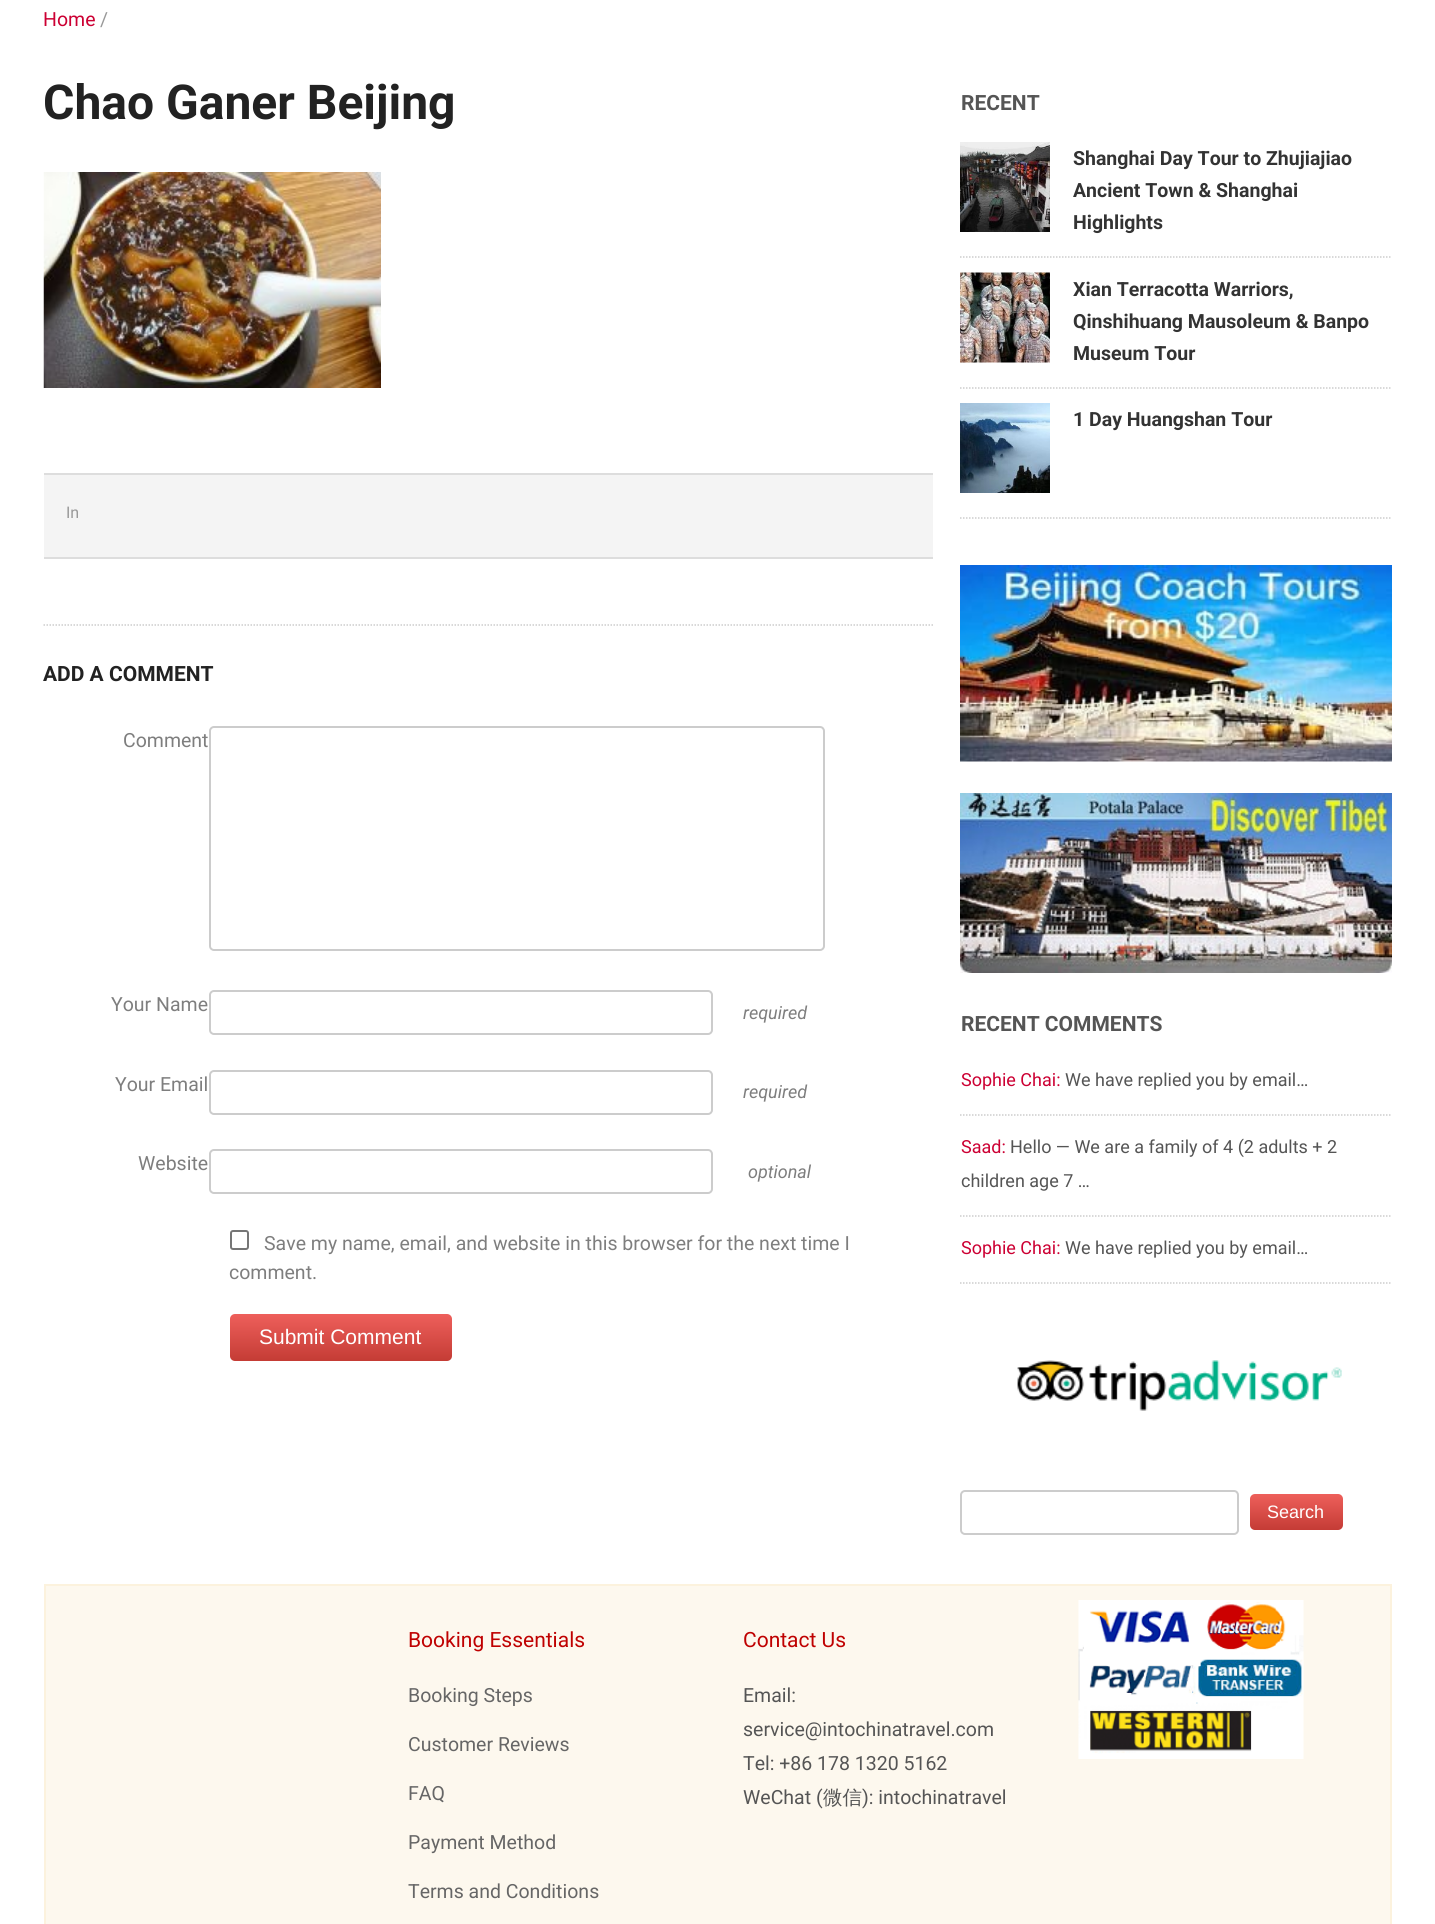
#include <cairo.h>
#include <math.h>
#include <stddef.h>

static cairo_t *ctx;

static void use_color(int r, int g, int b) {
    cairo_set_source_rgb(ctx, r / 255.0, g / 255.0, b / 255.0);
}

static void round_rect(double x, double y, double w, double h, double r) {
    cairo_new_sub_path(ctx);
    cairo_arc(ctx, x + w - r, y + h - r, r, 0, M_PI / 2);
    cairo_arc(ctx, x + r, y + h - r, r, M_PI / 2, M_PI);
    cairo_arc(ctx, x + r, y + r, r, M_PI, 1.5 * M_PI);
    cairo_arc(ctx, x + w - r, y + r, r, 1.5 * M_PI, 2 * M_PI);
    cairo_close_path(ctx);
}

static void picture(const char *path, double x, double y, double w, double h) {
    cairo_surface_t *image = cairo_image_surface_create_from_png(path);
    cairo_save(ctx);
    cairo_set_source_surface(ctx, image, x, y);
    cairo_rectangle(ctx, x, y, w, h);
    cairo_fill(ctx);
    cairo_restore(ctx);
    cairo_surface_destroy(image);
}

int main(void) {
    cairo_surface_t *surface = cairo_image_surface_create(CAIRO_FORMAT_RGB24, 1435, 1924);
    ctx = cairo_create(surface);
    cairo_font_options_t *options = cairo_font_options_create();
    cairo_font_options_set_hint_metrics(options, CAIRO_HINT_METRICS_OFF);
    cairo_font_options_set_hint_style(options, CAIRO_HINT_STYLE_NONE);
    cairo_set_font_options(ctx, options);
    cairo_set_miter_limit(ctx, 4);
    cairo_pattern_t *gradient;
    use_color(255, 255, 255);
    cairo_paint(ctx);
    cairo_select_font_face(ctx, "Roboto", CAIRO_FONT_SLANT_NORMAL, CAIRO_FONT_WEIGHT_NORMAL);
    cairo_set_font_size(ctx, 19.5);
    use_color(204, 0, 51);
    cairo_move_to(ctx, 43, 26);
    cairo_show_text(ctx, "Home");
    use_color(153, 153, 153);
    cairo_move_to(ctx, 100, 26);
    cairo_show_text(ctx, "/");
    cairo_select_font_face(ctx, "Roboto", CAIRO_FONT_SLANT_NORMAL, CAIRO_FONT_WEIGHT_BOLD);
    cairo_set_font_size(ctx, 48);
    use_color(34, 34, 34);
    cairo_move_to(ctx, 43, 119);
    cairo_show_text(ctx, "Chao Ganer Beijing");
    picture("img1.png", 43, 172, 338, 216);
    use_color(244, 244, 244);
    cairo_rectangle(ctx, 44, 475, 889, 82);
    cairo_fill(ctx);
    use_color(221, 221, 221);
    cairo_rectangle(ctx, 44, 473, 889, 2);
    cairo_fill(ctx);
    cairo_rectangle(ctx, 44, 557, 889, 2);
    cairo_fill(ctx);
    cairo_select_font_face(ctx, "Roboto", CAIRO_FONT_SLANT_NORMAL, CAIRO_FONT_WEIGHT_NORMAL);
    cairo_set_font_size(ctx, 16);
    use_color(153, 153, 153);
    cairo_move_to(ctx, 66, 518);
    cairo_show_text(ctx, "In");
    cairo_new_path(ctx);
    cairo_move_to(ctx, 43.5, 625);
    cairo_line_to(ctx, 933, 625);
    use_color(204, 204, 204);
    cairo_set_line_width(ctx, 1.5);
    cairo_set_dash(ctx, (double[]){1.5, 1.5}, 2, 0);
    cairo_stroke(ctx);
    cairo_select_font_face(ctx, "Roboto", CAIRO_FONT_SLANT_NORMAL, CAIRO_FONT_WEIGHT_BOLD);
    cairo_set_font_size(ctx, 21);
    use_color(34, 34, 34);
    cairo_move_to(ctx, 43, 681);
    cairo_show_text(ctx, "ADD A COMMENT");
    cairo_select_font_face(ctx, "Roboto", CAIRO_FONT_SLANT_NORMAL, CAIRO_FONT_WEIGHT_NORMAL);
    cairo_set_font_size(ctx, 19.5);
    use_color(126, 126, 126);
    cairo_move_to(ctx, 123, 747);
    cairo_show_text(ctx, "Comment");
    round_rect(210, 727, 614, 223, 4);
    use_color(204, 204, 204);
    cairo_set_line_width(ctx, 2);
    cairo_set_dash(ctx, NULL, 0, 0);
    cairo_stroke(ctx);
    use_color(126, 126, 126);
    cairo_move_to(ctx, 111, 1011);
    cairo_show_text(ctx, "Your Name");
    round_rect(210, 991, 502, 43, 4);
    use_color(204, 204, 204);
    cairo_stroke(ctx);
    cairo_select_font_face(ctx, "Roboto", CAIRO_FONT_SLANT_ITALIC, CAIRO_FONT_WEIGHT_NORMAL);
    cairo_set_font_size(ctx, 18);
    use_color(126, 126, 126);
    cairo_move_to(ctx, 743, 1019);
    cairo_show_text(ctx, "required");
    cairo_select_font_face(ctx, "Roboto", CAIRO_FONT_SLANT_NORMAL, CAIRO_FONT_WEIGHT_NORMAL);
    cairo_set_font_size(ctx, 19.5);
    cairo_move_to(ctx, 115, 1091);
    cairo_show_text(ctx, "Your Email");
    round_rect(210, 1071, 502, 43, 4);
    use_color(204, 204, 204);
    cairo_stroke(ctx);
    cairo_select_font_face(ctx, "Roboto", CAIRO_FONT_SLANT_ITALIC, CAIRO_FONT_WEIGHT_NORMAL);
    cairo_set_font_size(ctx, 18);
    use_color(126, 126, 126);
    cairo_move_to(ctx, 743, 1098);
    cairo_show_text(ctx, "required");
    cairo_select_font_face(ctx, "Roboto", CAIRO_FONT_SLANT_NORMAL, CAIRO_FONT_WEIGHT_NORMAL);
    cairo_set_font_size(ctx, 19.5);
    cairo_move_to(ctx, 138, 1170);
    cairo_show_text(ctx, "Website");
    round_rect(210, 1150, 502, 43, 4);
    use_color(204, 204, 204);
    cairo_stroke(ctx);
    cairo_select_font_face(ctx, "Roboto", CAIRO_FONT_SLANT_ITALIC, CAIRO_FONT_WEIGHT_NORMAL);
    cairo_set_font_size(ctx, 18);
    use_color(126, 126, 126);
    cairo_move_to(ctx, 748, 1178);
    cairo_show_text(ctx, "optional");
    round_rect(231, 1231, 17, 18, 2);
    use_color(118, 118, 118);
    cairo_stroke(ctx);
    cairo_select_font_face(ctx, "Roboto", CAIRO_FONT_SLANT_NORMAL, CAIRO_FONT_WEIGHT_NORMAL);
    cairo_set_font_size(ctx, 19.5);
    use_color(126, 126, 126);
    cairo_move_to(ctx, 264, 1250);
    cairo_show_text(ctx, "Save my name, email, and website in this browser for the next time I");
    cairo_move_to(ctx, 229, 1279);
    cairo_show_text(ctx, "comment.");
    gradient = cairo_pattern_create_linear(341, 1314, 341, 1361);
    cairo_pattern_add_color_stop_rgba(gradient, 0, 0.933, 0.373, 0.357, 1);
    cairo_pattern_add_color_stop_rgba(gradient, 1, 0.769, 0.235, 0.208, 1);
    cairo_set_source(ctx, gradient);
    cairo_pattern_destroy(gradient);
    round_rect(230, 1314, 222, 47, 5);
    cairo_fill(ctx);
    cairo_select_font_face(ctx, "Liberation Sans", CAIRO_FONT_SLANT_NORMAL, CAIRO_FONT_WEIGHT_NORMAL);
    cairo_set_font_size(ctx, 21);
    use_color(255, 255, 255);
    cairo_move_to(ctx, 259, 1344);
    cairo_show_text(ctx, "Submit Comment");
    cairo_select_font_face(ctx, "Roboto", CAIRO_FONT_SLANT_NORMAL, CAIRO_FONT_WEIGHT_BOLD);
    use_color(85, 85, 85);
    cairo_move_to(ctx, 961, 110);
    cairo_show_text(ctx, "RECENT");
    cairo_new_path(ctx);
    cairo_move_to(ctx, 960, 257);
    cairo_line_to(ctx, 1392, 257);
    use_color(204, 204, 204);
    cairo_set_line_width(ctx, 1.5);
    cairo_set_dash(ctx, (double[]){1.5, 1.5}, 2, 0);
    cairo_stroke(ctx);
    picture("img2.png", 960, 142, 90, 90);
    cairo_set_font_size(ctx, 19.5);
    use_color(51, 51, 51);
    cairo_move_to(ctx, 1073, 165);
    cairo_show_text(ctx, "Shanghai Day Tour to Zhujiajiao");
    cairo_move_to(ctx, 1073, 197);
    cairo_show_text(ctx, "Ancient Town & Shanghai");
    cairo_move_to(ctx, 1073, 229);
    cairo_show_text(ctx, "Highlights");
    cairo_new_path(ctx);
    cairo_move_to(ctx, 960, 388);
    cairo_line_to(ctx, 1392, 388);
    use_color(204, 204, 204);
    cairo_stroke(ctx);
    picture("img3.png", 960, 272, 90, 91);
    use_color(51, 51, 51);
    cairo_move_to(ctx, 1073, 296);
    cairo_show_text(ctx, "Xian Terracotta Warriors,");
    cairo_move_to(ctx, 1073, 328);
    cairo_show_text(ctx, "Qinshihuang Mausoleum & Banpo");
    cairo_move_to(ctx, 1073, 360);
    cairo_show_text(ctx, "Museum Tour");
    cairo_new_path(ctx);
    cairo_move_to(ctx, 960, 518);
    cairo_line_to(ctx, 1392, 518);
    use_color(204, 204, 204);
    cairo_stroke(ctx);
    picture("img4.png", 960, 403, 90, 90);
    use_color(51, 51, 51);
    cairo_move_to(ctx, 1073, 426);
    cairo_show_text(ctx, "1 Day Huangshan Tour");
    picture("img5.png", 960, 565, 432, 197);
    picture("img6.png", 960, 793, 432, 180);
    cairo_set_font_size(ctx, 21);
    use_color(85, 85, 85);
    cairo_move_to(ctx, 961, 1031);
    cairo_show_text(ctx, "RECENT COMMENTS");
    cairo_new_path(ctx);
    cairo_move_to(ctx, 960, 1115);
    cairo_line_to(ctx, 1392, 1115);
    use_color(204, 204, 204);
    cairo_stroke(ctx);
    cairo_select_font_face(ctx, "Roboto", CAIRO_FONT_SLANT_NORMAL, CAIRO_FONT_WEIGHT_NORMAL);
    cairo_set_font_size(ctx, 18);
    use_color(204, 0, 51);
    cairo_move_to(ctx, 961, 1086);
    cairo_show_text(ctx, "Sophie Chai:");
    use_color(85, 85, 85);
    cairo_move_to(ctx, 1065, 1086);
    cairo_show_text(ctx, "We have replied you by email…");
    cairo_new_path(ctx);
    cairo_move_to(ctx, 960, 1216);
    cairo_line_to(ctx, 1392, 1216);
    use_color(204, 204, 204);
    cairo_stroke(ctx);
    use_color(204, 0, 51);
    cairo_move_to(ctx, 961, 1153);
    cairo_show_text(ctx, "Saad:");
    use_color(85, 85, 85);
    cairo_move_to(ctx, 1010, 1153);
    cairo_show_text(ctx, "Hello — We are a family of 4 (2 adults + 2");
    cairo_move_to(ctx, 961, 1187);
    cairo_show_text(ctx, "children age 7 …");
    cairo_new_path(ctx);
    cairo_move_to(ctx, 960, 1283);
    cairo_line_to(ctx, 1392, 1283);
    use_color(204, 204, 204);
    cairo_stroke(ctx);
    use_color(204, 0, 51);
    cairo_move_to(ctx, 961, 1254);
    cairo_show_text(ctx, "Sophie Chai:");
    use_color(85, 85, 85);
    cairo_move_to(ctx, 1065, 1254);
    cairo_show_text(ctx, "We have replied you by email…");
    picture("img7.png", 1017, 1360, 325, 51);
    round_rect(961, 1491, 277, 43, 4);
    use_color(204, 204, 204);
    cairo_set_line_width(ctx, 2);
    cairo_set_dash(ctx, NULL, 0, 0);
    cairo_stroke(ctx);
    gradient = cairo_pattern_create_linear(1296, 1494, 1296, 1530);
    cairo_pattern_add_color_stop_rgba(gradient, 0, 0.933, 0.373, 0.357, 1);
    cairo_pattern_add_color_stop_rgba(gradient, 1, 0.769, 0.235, 0.208, 1);
    cairo_set_source(ctx, gradient);
    cairo_pattern_destroy(gradient);
    round_rect(1250, 1494, 93, 36, 5);
    cairo_fill(ctx);
    cairo_select_font_face(ctx, "Liberation Sans", CAIRO_FONT_SLANT_NORMAL, CAIRO_FONT_WEIGHT_NORMAL);
    use_color(255, 255, 255);
    cairo_move_to(ctx, 1267, 1518);
    cairo_show_text(ctx, "Search");
    use_color(253, 248, 238);
    cairo_rectangle(ctx, 45, 1585, 1346, 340);
    cairo_fill_preserve(ctx);
    use_color(252, 242, 221);
    cairo_stroke(ctx);
    cairo_select_font_face(ctx, "Roboto", CAIRO_FONT_SLANT_NORMAL, CAIRO_FONT_WEIGHT_NORMAL);
    cairo_set_font_size(ctx, 21);
    use_color(191, 1, 1);
    cairo_move_to(ctx, 408, 1647);
    cairo_show_text(ctx, "Booking Essentials");
    cairo_set_font_size(ctx, 19.5);
    use_color(102, 102, 102);
    cairo_move_to(ctx, 408, 1702);
    cairo_show_text(ctx, "Booking Steps");
    cairo_move_to(ctx, 408, 1751);
    cairo_show_text(ctx, "Customer Reviews");
    cairo_move_to(ctx, 408, 1800);
    cairo_show_text(ctx, "FAQ");
    cairo_move_to(ctx, 408, 1849);
    cairo_show_text(ctx, "Payment Method");
    cairo_move_to(ctx, 408, 1898);
    cairo_show_text(ctx, "Terms and Conditions");
    cairo_set_font_size(ctx, 21);
    use_color(191, 1, 1);
    cairo_move_to(ctx, 743, 1647);
    cairo_show_text(ctx, "Contact Us");
    cairo_set_font_size(ctx, 19.5);
    use_color(85, 85, 85);
    cairo_move_to(ctx, 743, 1702);
    cairo_show_text(ctx, "Email:");
    cairo_move_to(ctx, 743, 1736);
    cairo_show_text(ctx, "service@intochinatravel.com");
    cairo_move_to(ctx, 743, 1770);
    cairo_show_text(ctx, "Tel: +86 178 1320 5162");
    cairo_move_to(ctx, 743, 1804);
    cairo_show_text(ctx, "WeChat (");
    cairo_select_font_face(ctx, "WenQuanYi Zen Hei Medium", CAIRO_FONT_SLANT_NORMAL, CAIRO_FONT_WEIGHT_NORMAL);
    cairo_move_to(ctx, 823, 1804);
    cairo_show_text(ctx, "微信");
    cairo_select_font_face(ctx, "Roboto", CAIRO_FONT_SLANT_NORMAL, CAIRO_FONT_WEIGHT_NORMAL);
    cairo_move_to(ctx, 862, 1804);
    cairo_show_text(ctx, "): intochinatravel");
    picture("img8.png", 1078, 1600, 226, 159);
    cairo_surface_write_to_png(surface, "result.png");
    cairo_font_options_destroy(options);
    cairo_destroy(ctx);
    cairo_surface_destroy(surface);
    return 0;
}
